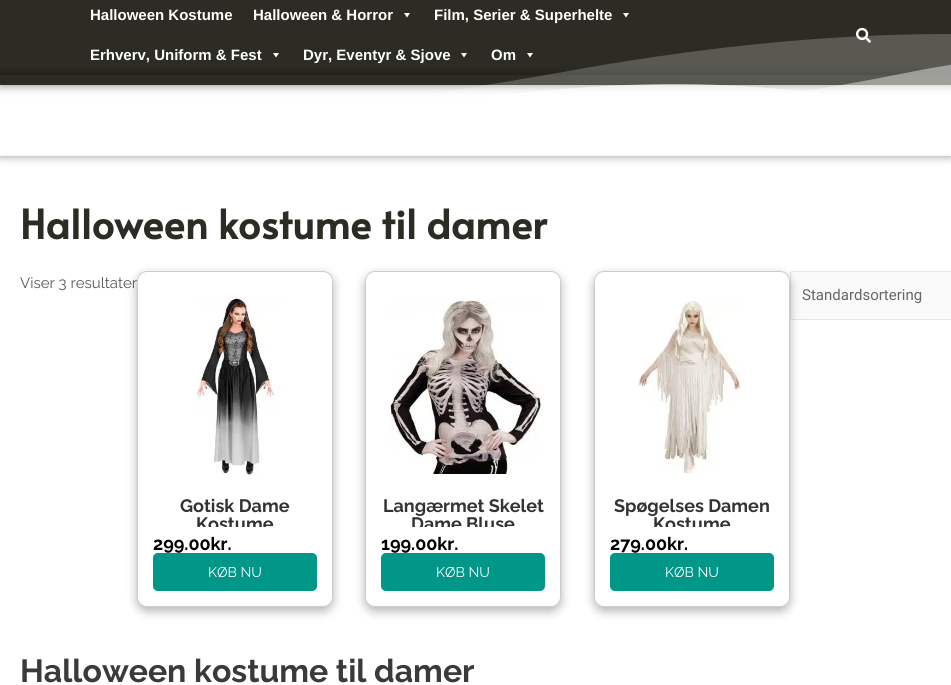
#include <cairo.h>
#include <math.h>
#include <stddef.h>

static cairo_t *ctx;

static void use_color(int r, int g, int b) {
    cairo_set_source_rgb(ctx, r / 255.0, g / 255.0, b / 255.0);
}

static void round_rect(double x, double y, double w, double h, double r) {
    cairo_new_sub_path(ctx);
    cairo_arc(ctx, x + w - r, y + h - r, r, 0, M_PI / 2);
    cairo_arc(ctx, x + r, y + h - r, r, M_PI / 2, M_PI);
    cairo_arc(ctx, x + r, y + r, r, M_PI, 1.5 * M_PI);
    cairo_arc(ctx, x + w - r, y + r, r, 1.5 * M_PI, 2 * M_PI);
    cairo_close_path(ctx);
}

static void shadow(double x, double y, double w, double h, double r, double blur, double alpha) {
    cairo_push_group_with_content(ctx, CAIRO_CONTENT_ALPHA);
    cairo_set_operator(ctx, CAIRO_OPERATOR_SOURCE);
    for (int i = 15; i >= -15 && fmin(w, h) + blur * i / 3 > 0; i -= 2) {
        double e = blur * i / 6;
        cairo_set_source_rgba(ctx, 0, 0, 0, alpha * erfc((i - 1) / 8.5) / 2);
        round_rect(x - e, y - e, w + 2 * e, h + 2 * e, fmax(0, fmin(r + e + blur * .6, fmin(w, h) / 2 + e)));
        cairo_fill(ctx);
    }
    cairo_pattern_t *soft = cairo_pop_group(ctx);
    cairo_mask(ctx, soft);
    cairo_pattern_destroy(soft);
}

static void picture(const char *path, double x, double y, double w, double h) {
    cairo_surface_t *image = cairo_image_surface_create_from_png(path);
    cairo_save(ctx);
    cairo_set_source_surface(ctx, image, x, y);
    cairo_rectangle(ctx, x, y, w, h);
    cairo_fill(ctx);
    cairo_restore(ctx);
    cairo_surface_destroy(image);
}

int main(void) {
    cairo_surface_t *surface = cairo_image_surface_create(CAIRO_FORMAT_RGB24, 951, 685);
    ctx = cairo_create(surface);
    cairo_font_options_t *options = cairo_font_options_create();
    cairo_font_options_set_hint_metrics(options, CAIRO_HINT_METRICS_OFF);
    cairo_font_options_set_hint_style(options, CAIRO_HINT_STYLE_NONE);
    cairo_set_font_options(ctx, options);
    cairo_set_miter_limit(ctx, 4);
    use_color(255, 255, 255);
    cairo_paint(ctx);
    use_color(0, 0, 0);
    shadow(0, -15, 951, 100, 0, 5, 0.5);
    use_color(44, 44, 36);
    cairo_rectangle(ctx, 0, 0, 951, 85);
    cairo_fill(ctx);
    cairo_select_font_face(ctx, "Liberation Sans", CAIRO_FONT_SLANT_NORMAL, CAIRO_FONT_WEIGHT_BOLD);
    cairo_set_font_size(ctx, 15);
    use_color(255, 255, 255);
    cairo_move_to(ctx, 90, 20);
    cairo_show_text(ctx, "Halloween Kostume");
    cairo_move_to(ctx, 253, 20);
    cairo_show_text(ctx, "Halloween & Horror");
    cairo_new_path(ctx);
    cairo_move_to(ctx, 410, 13);
    cairo_line_to(ctx, 407, 17.5);
    cairo_line_to(ctx, 404, 13);
    cairo_close_path(ctx);
    cairo_fill(ctx);
    cairo_move_to(ctx, 434, 20);
    cairo_show_text(ctx, "Film, Serier & Superhelte");
    cairo_new_path(ctx);
    cairo_move_to(ctx, 629, 13);
    cairo_line_to(ctx, 626, 17.5);
    cairo_line_to(ctx, 623, 13);
    cairo_close_path(ctx);
    cairo_fill(ctx);
    cairo_save(ctx);
    cairo_set_fill_rule(ctx, CAIRO_FILL_RULE_EVEN_ODD);
    cairo_new_path(ctx);
    cairo_move_to(ctx, 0, 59);
    cairo_line_to(ctx, 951, 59);
    cairo_line_to(ctx, 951, 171);
    cairo_line_to(ctx, 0, 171);
    cairo_close_path(ctx);
    cairo_move_to(ctx, 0, 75);
    cairo_line_to(ctx, 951, 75);
    cairo_line_to(ctx, 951, 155);
    cairo_line_to(ctx, 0, 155);
    cairo_close_path(ctx);
    cairo_clip(ctx);
    use_color(0, 0, 0);
    shadow(0, 75, 951, 80, 0, 5, 0.5);
    cairo_restore(ctx);
    picture("img2.png", 0, 34, 951, 122);
    cairo_move_to(ctx, 90, 60);
    cairo_show_text(ctx, "Erhverv, Uniform & Fest");
    cairo_new_path(ctx);
    cairo_move_to(ctx, 279, 53);
    cairo_line_to(ctx, 276, 57.5);
    cairo_line_to(ctx, 273, 53);
    cairo_close_path(ctx);
    cairo_fill(ctx);
    cairo_move_to(ctx, 303, 60);
    cairo_show_text(ctx, "Dyr, Eventyr & Sjove");
    cairo_new_path(ctx);
    cairo_move_to(ctx, 467, 53);
    cairo_line_to(ctx, 464, 57.5);
    cairo_line_to(ctx, 461, 53);
    cairo_close_path(ctx);
    cairo_fill(ctx);
    cairo_move_to(ctx, 491, 60);
    cairo_show_text(ctx, "Om");
    cairo_new_path(ctx);
    cairo_move_to(ctx, 533, 53);
    cairo_line_to(ctx, 530, 57.5);
    cairo_line_to(ctx, 527, 53);
    cairo_close_path(ctx);
    cairo_fill(ctx);
    picture("img1.png", 856, 27, 15, 16);
    cairo_select_font_face(ctx, "Alata", CAIRO_FONT_SLANT_NORMAL, CAIRO_FONT_WEIGHT_BOLD);
    cairo_set_font_size(ctx, 40);
    use_color(44, 44, 36);
    cairo_move_to(ctx, 20, 239);
    cairo_show_text(ctx, "Halloween kostume til damer");
    cairo_select_font_face(ctx, "Raleway", CAIRO_FONT_SLANT_NORMAL, CAIRO_FONT_WEIGHT_NORMAL);
    cairo_set_font_size(ctx, 15);
    use_color(84, 89, 95);
    cairo_move_to(ctx, 20, 288);
    cairo_show_text(ctx, "Viser 3 resultater");
    use_color(250, 250, 250);
    round_rect(790.5, 271.5, 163, 48, 1.5);
    cairo_fill_preserve(ctx);
    use_color(229, 229, 229);
    cairo_set_line_width(ctx, 1);
    cairo_stroke(ctx);
    cairo_select_font_face(ctx, "Roboto", CAIRO_FONT_SLANT_NORMAL, CAIRO_FONT_WEIGHT_NORMAL);
    use_color(102, 102, 102);
    cairo_move_to(ctx, 802, 300);
    cairo_show_text(ctx, "Standardsortering");
    cairo_save(ctx);
    cairo_set_fill_rule(ctx, CAIRO_FILL_RULE_EVEN_ODD);
    cairo_new_path(ctx);
    cairo_move_to(ctx, 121, 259);
    cairo_line_to(ctx, 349, 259);
    cairo_line_to(ctx, 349, 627);
    cairo_line_to(ctx, 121, 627);
    cairo_close_path(ctx);
    cairo_move_to(ctx, 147, 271);
    cairo_line_to(ctx, 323, 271);
    cairo_curve_to(ctx, 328.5, 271, 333, 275.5, 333, 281);
    cairo_line_to(ctx, 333, 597);
    cairo_curve_to(ctx, 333, 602.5, 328.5, 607, 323, 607);
    cairo_line_to(ctx, 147, 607);
    cairo_curve_to(ctx, 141.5, 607, 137, 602.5, 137, 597);
    cairo_line_to(ctx, 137, 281);
    cairo_curve_to(ctx, 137, 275.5, 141.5, 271, 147, 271);
    cairo_close_path(ctx);
    cairo_clip(ctx);
    use_color(0, 0, 0);
    shadow(137, 275, 196, 336, 10, 5, 0.3);
    cairo_restore(ctx);
    round_rect(137.5, 271.5, 195, 335, 9.5);
    cairo_set_source_rgba(ctx, 0, 0, 0, 0.2);
    cairo_stroke(ctx);
    picture("img3.png", 196, 297, 86, 180);
    cairo_select_font_face(ctx, "Raleway", CAIRO_FONT_SLANT_NORMAL, CAIRO_FONT_WEIGHT_BOLD);
    cairo_set_font_size(ctx, 18);
    use_color(51, 51, 51);
    cairo_move_to(ctx, 180, 512);
    cairo_show_text(ctx, "Gotisk Dame");
    cairo_save(ctx);
    cairo_rectangle(ctx, 153, 497, 164, 30);
    cairo_clip(ctx);
    cairo_move_to(ctx, 196, 530);
    cairo_show_text(ctx, "Kostume");
    cairo_restore(ctx);
    use_color(0, 0, 0);
    cairo_move_to(ctx, 153, 550);
    cairo_show_text(ctx, "299.00kr.");
    use_color(0, 150, 136);
    round_rect(153, 553, 164, 38, 5);
    cairo_fill(ctx);
    cairo_select_font_face(ctx, "Raleway", CAIRO_FONT_SLANT_NORMAL, CAIRO_FONT_WEIGHT_NORMAL);
    cairo_set_font_size(ctx, 14);
    use_color(255, 255, 255);
    cairo_move_to(ctx, 208, 577);
    cairo_show_text(ctx, "KØB NU");
    cairo_save(ctx);
    cairo_set_fill_rule(ctx, CAIRO_FILL_RULE_EVEN_ODD);
    cairo_new_path(ctx);
    cairo_move_to(ctx, 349, 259);
    cairo_line_to(ctx, 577, 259);
    cairo_line_to(ctx, 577, 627);
    cairo_line_to(ctx, 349, 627);
    cairo_close_path(ctx);
    cairo_move_to(ctx, 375, 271);
    cairo_line_to(ctx, 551, 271);
    cairo_curve_to(ctx, 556.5, 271, 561, 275.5, 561, 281);
    cairo_line_to(ctx, 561, 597);
    cairo_curve_to(ctx, 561, 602.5, 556.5, 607, 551, 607);
    cairo_line_to(ctx, 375, 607);
    cairo_curve_to(ctx, 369.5, 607, 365, 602.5, 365, 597);
    cairo_line_to(ctx, 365, 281);
    cairo_curve_to(ctx, 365, 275.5, 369.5, 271, 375, 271);
    cairo_close_path(ctx);
    cairo_clip(ctx);
    use_color(0, 0, 0);
    shadow(365, 275, 196, 336, 10, 5, 0.3);
    cairo_restore(ctx);
    round_rect(365.5, 271.5, 195, 335, 9.5);
    cairo_set_source_rgba(ctx, 0, 0, 0, 0.2);
    cairo_stroke(ctx);
    picture("img4.png", 390, 300, 155, 174);
    cairo_select_font_face(ctx, "Raleway", CAIRO_FONT_SLANT_NORMAL, CAIRO_FONT_WEIGHT_BOLD);
    cairo_set_font_size(ctx, 18);
    use_color(51, 51, 51);
    cairo_move_to(ctx, 383, 512);
    cairo_show_text(ctx, "Langærmet Skelet");
    cairo_save(ctx);
    cairo_rectangle(ctx, 381, 497, 164, 30);
    cairo_clip(ctx);
    cairo_move_to(ctx, 411, 530);
    cairo_show_text(ctx, "Dame Bluse");
    cairo_restore(ctx);
    use_color(0, 0, 0);
    cairo_move_to(ctx, 381, 550);
    cairo_show_text(ctx, "199.00kr.");
    use_color(0, 150, 136);
    round_rect(381, 553, 164, 38, 5);
    cairo_fill(ctx);
    cairo_select_font_face(ctx, "Raleway", CAIRO_FONT_SLANT_NORMAL, CAIRO_FONT_WEIGHT_NORMAL);
    cairo_set_font_size(ctx, 14);
    use_color(255, 255, 255);
    cairo_move_to(ctx, 436, 577);
    cairo_show_text(ctx, "KØB NU");
    cairo_save(ctx);
    cairo_set_fill_rule(ctx, CAIRO_FILL_RULE_EVEN_ODD);
    cairo_new_path(ctx);
    cairo_move_to(ctx, 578, 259);
    cairo_line_to(ctx, 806, 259);
    cairo_line_to(ctx, 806, 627);
    cairo_line_to(ctx, 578, 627);
    cairo_close_path(ctx);
    cairo_move_to(ctx, 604, 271);
    cairo_line_to(ctx, 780, 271);
    cairo_curve_to(ctx, 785.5, 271, 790, 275.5, 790, 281);
    cairo_line_to(ctx, 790, 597);
    cairo_curve_to(ctx, 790, 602.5, 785.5, 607, 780, 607);
    cairo_line_to(ctx, 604, 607);
    cairo_curve_to(ctx, 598.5, 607, 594, 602.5, 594, 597);
    cairo_line_to(ctx, 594, 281);
    cairo_curve_to(ctx, 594, 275.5, 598.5, 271, 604, 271);
    cairo_close_path(ctx);
    cairo_clip(ctx);
    use_color(0, 0, 0);
    shadow(594, 275, 196, 336, 10, 5, 0.3);
    cairo_restore(ctx);
    round_rect(594.5, 271.5, 195, 335, 9.5);
    cairo_set_source_rgba(ctx, 0, 0, 0, 0.2);
    cairo_stroke(ctx);
    picture("img5.png", 636, 301, 107, 172);
    cairo_select_font_face(ctx, "Raleway", CAIRO_FONT_SLANT_NORMAL, CAIRO_FONT_WEIGHT_BOLD);
    cairo_set_font_size(ctx, 18);
    use_color(51, 51, 51);
    cairo_move_to(ctx, 614, 512);
    cairo_show_text(ctx, "Spøgelses Damen");
    cairo_save(ctx);
    cairo_rectangle(ctx, 610, 497, 164, 30);
    cairo_clip(ctx);
    cairo_move_to(ctx, 653, 530);
    cairo_show_text(ctx, "Kostume");
    cairo_restore(ctx);
    use_color(0, 0, 0);
    cairo_move_to(ctx, 610, 550);
    cairo_show_text(ctx, "279.00kr.");
    use_color(0, 150, 136);
    round_rect(610, 553, 164, 38, 5);
    cairo_fill(ctx);
    cairo_select_font_face(ctx, "Raleway", CAIRO_FONT_SLANT_NORMAL, CAIRO_FONT_WEIGHT_NORMAL);
    cairo_set_font_size(ctx, 14);
    use_color(255, 255, 255);
    cairo_move_to(ctx, 665, 577);
    cairo_show_text(ctx, "KØB NU");
    cairo_select_font_face(ctx, "Raleway", CAIRO_FONT_SLANT_NORMAL, CAIRO_FONT_WEIGHT_BOLD);
    cairo_set_font_size(ctx, 32);
    use_color(58, 58, 58);
    cairo_move_to(ctx, 20, 682);
    cairo_show_text(ctx, "Halloween kostume til damer");
    cairo_surface_write_to_png(surface, "result.png");
    cairo_font_options_destroy(options);
    cairo_destroy(ctx);
    cairo_surface_destroy(surface);
    return 0;
}
